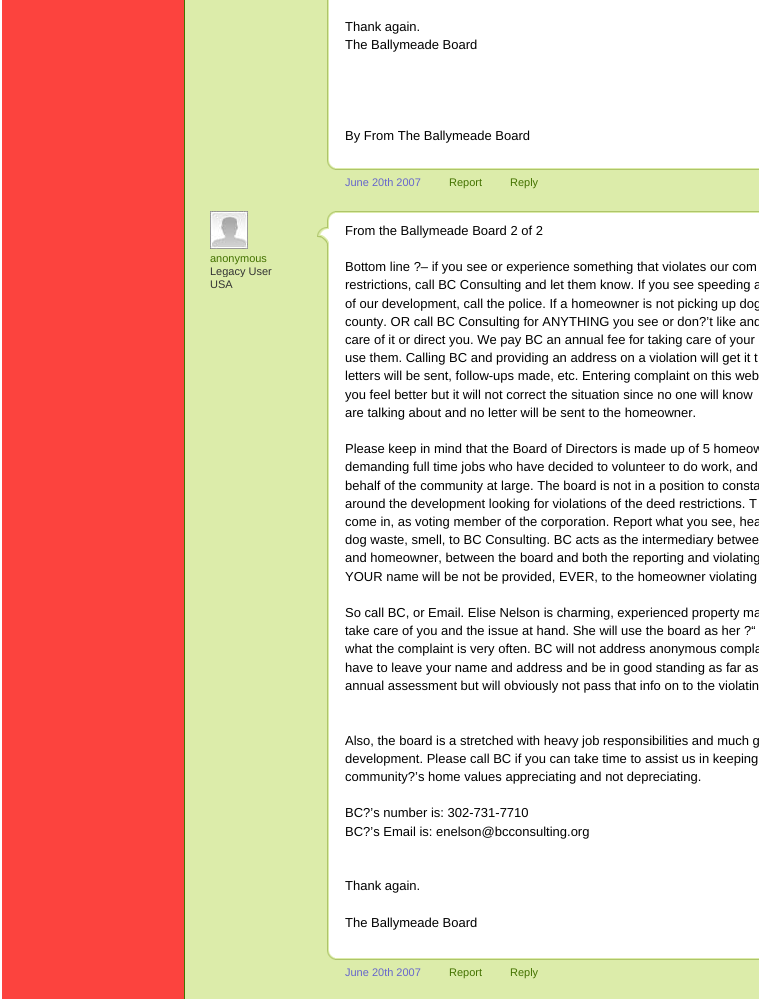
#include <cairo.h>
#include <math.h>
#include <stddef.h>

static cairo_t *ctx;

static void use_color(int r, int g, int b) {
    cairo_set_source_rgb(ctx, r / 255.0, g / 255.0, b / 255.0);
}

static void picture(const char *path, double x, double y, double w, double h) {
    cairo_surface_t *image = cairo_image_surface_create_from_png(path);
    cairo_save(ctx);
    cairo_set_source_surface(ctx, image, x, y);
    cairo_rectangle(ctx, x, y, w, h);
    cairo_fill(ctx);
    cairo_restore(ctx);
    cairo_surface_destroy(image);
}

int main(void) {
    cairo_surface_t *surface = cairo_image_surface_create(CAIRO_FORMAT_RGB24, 759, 999);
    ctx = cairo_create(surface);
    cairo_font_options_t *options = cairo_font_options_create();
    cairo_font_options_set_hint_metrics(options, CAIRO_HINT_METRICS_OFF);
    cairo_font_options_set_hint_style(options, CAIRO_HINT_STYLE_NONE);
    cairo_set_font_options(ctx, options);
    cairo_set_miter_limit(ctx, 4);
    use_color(252, 67, 62);
    cairo_paint(ctx);
    use_color(255, 255, 255);
    cairo_rectangle(ctx, 0, 0, 2, 999);
    cairo_fill(ctx);
    use_color(220, 236, 170);
    cairo_rectangle(ctx, 185, 0, 574, 999);
    cairo_fill(ctx);
    use_color(67, 114, 0);
    cairo_rectangle(ctx, 184, 0, 1, 999);
    cairo_fill(ctx);
    use_color(255, 255, 255);
    cairo_rectangle(ctx, 335, 0, 424, 160);
    cairo_fill(ctx);
    picture("img1.png", 327, 0, 8, 160);
    cairo_select_font_face(ctx, "Liberation Sans", CAIRO_FONT_SLANT_NORMAL, CAIRO_FONT_WEIGHT_NORMAL);
    cairo_set_font_size(ctx, 13);
    use_color(0, 0, 0);
    cairo_move_to(ctx, 345, 31);
    cairo_show_text(ctx, "Thank again.");
    cairo_move_to(ctx, 345, 49);
    cairo_show_text(ctx, "The Ballymeade Board");
    cairo_move_to(ctx, 345, 140);
    cairo_show_text(ctx, "By From The Ballymeade Board");
    picture("img2.png", 335, 160, 424, 10);
    picture("img3.png", 327, 160, 8, 10);
    cairo_set_font_size(ctx, 11);
    use_color(102, 102, 204);
    cairo_move_to(ctx, 345, 186);
    cairo_show_text(ctx, "June 20th 2007");
    use_color(67, 114, 0);
    cairo_move_to(ctx, 449, 186);
    cairo_show_text(ctx, "Report");
    cairo_move_to(ctx, 510, 186);
    cairo_show_text(ctx, "Reply");
    picture("img4.png", 210, 211, 38, 38);
    cairo_move_to(ctx, 210, 262);
    cairo_show_text(ctx, "anonymous");
    cairo_save(ctx);
    cairo_rectangle(ctx, 200, 265, 92, 12);
    cairo_clip(ctx);
    use_color(51, 51, 51);
    cairo_move_to(ctx, 210, 275);
    cairo_show_text(ctx, "Legacy User");
    cairo_restore(ctx);
    use_color(51, 51, 51);
    cairo_move_to(ctx, 210, 288);
    cairo_show_text(ctx, "USA");
    picture("img5.png", 335, 211, 424, 739);
    picture("img6.png", 317, 211, 18, 739);
    cairo_set_font_size(ctx, 13);
    use_color(0, 0, 0);
    cairo_move_to(ctx, 345, 235);
    cairo_show_text(ctx, "From the Ballymeade Board 2 of 2");
    cairo_move_to(ctx, 345, 271);
    cairo_show_text(ctx, "Bottom line ?– if you see or experience something that violates our com");
    cairo_move_to(ctx, 345, 289);
    cairo_show_text(ctx, "restrictions, call BC Consulting and let them know. If you see speeding a");
    cairo_move_to(ctx, 345, 308);
    cairo_show_text(ctx, "of our development, call the police. If a homeowner is not picking up dog");
    cairo_move_to(ctx, 345, 326);
    cairo_show_text(ctx, "county. OR call BC Consulting for ANYTHING you see or don?’t like and");
    cairo_move_to(ctx, 345, 344);
    cairo_show_text(ctx, "care of it or direct you. We pay BC an annual fee for taking care of your");
    cairo_move_to(ctx, 345, 362);
    cairo_show_text(ctx, "use them. Calling BC and providing an address on a violation will get it t");
    cairo_move_to(ctx, 345, 380);
    cairo_show_text(ctx, "letters will be sent, follow-ups made, etc. Entering complaint on this web");
    cairo_move_to(ctx, 345, 399);
    cairo_show_text(ctx, "you feel better but it will not correct the situation since no one will know");
    cairo_move_to(ctx, 345, 417);
    cairo_show_text(ctx, "are talking about and no letter will be sent to the homeowner.");
    cairo_move_to(ctx, 345, 453);
    cairo_show_text(ctx, "Please keep in mind that the Board of Directors is made up of 5 homeow");
    cairo_move_to(ctx, 345, 471);
    cairo_show_text(ctx, "demanding full time jobs who have decided to volunteer to do work, and");
    cairo_move_to(ctx, 345, 490);
    cairo_show_text(ctx, "behalf of the community at large. The board is not in a position to consta");
    cairo_move_to(ctx, 345, 508);
    cairo_show_text(ctx, "around the development looking for violations of the deed restrictions. T");
    cairo_move_to(ctx, 345, 526);
    cairo_show_text(ctx, "come in, as voting member of the corporation. Report what you see, hea");
    cairo_move_to(ctx, 345, 544);
    cairo_show_text(ctx, "dog waste, smell, to BC Consulting. BC acts as the intermediary betwee");
    cairo_move_to(ctx, 345, 562);
    cairo_show_text(ctx, "and homeowner, between the board and both the reporting and violating");
    cairo_move_to(ctx, 345, 581);
    cairo_show_text(ctx, "YOUR name will be not be provided, EVER, to the homeowner violating");
    cairo_move_to(ctx, 345, 617);
    cairo_show_text(ctx, "So call BC, or Email. Elise Nelson is charming, experienced property ma");
    cairo_move_to(ctx, 345, 635);
    cairo_show_text(ctx, "take care of you and the issue at hand. She will use the board as her ?“");
    cairo_move_to(ctx, 345, 653);
    cairo_show_text(ctx, "what the complaint is very often. BC will not address anonymous compla");
    cairo_move_to(ctx, 345, 672);
    cairo_show_text(ctx, "have to leave your name and address and be in good standing as far as");
    cairo_move_to(ctx, 345, 690);
    cairo_show_text(ctx, "annual assessment but will obviously not pass that info on to the violatin");
    cairo_move_to(ctx, 345, 745);
    cairo_show_text(ctx, "Also, the board is a stretched with heavy job responsibilities and much g");
    cairo_move_to(ctx, 345, 763);
    cairo_show_text(ctx, "development. Please call BC if you can take time to assist us in keeping");
    cairo_move_to(ctx, 345, 781);
    cairo_show_text(ctx, "community?’s home values appreciating and not depreciating.");
    cairo_move_to(ctx, 345, 817);
    cairo_show_text(ctx, "BC?’s number is: 302-731-7710");
    cairo_move_to(ctx, 345, 836);
    cairo_show_text(ctx, "BC?’s Email is: enelson@bcconsulting.org");
    cairo_move_to(ctx, 345, 890);
    cairo_show_text(ctx, "Thank again.");
    cairo_move_to(ctx, 345, 927);
    cairo_show_text(ctx, "The Ballymeade Board");
    picture("img2.png", 335, 950, 424, 10);
    picture("img3.png", 327, 950, 8, 10);
    cairo_set_font_size(ctx, 11);
    use_color(102, 102, 204);
    cairo_move_to(ctx, 345, 976);
    cairo_show_text(ctx, "June 20th 2007");
    use_color(67, 114, 0);
    cairo_move_to(ctx, 449, 976);
    cairo_show_text(ctx, "Report");
    cairo_move_to(ctx, 510, 976);
    cairo_show_text(ctx, "Reply");
    cairo_surface_write_to_png(surface, "result.png");
    cairo_font_options_destroy(options);
    cairo_destroy(ctx);
    cairo_surface_destroy(surface);
    return 0;
}
